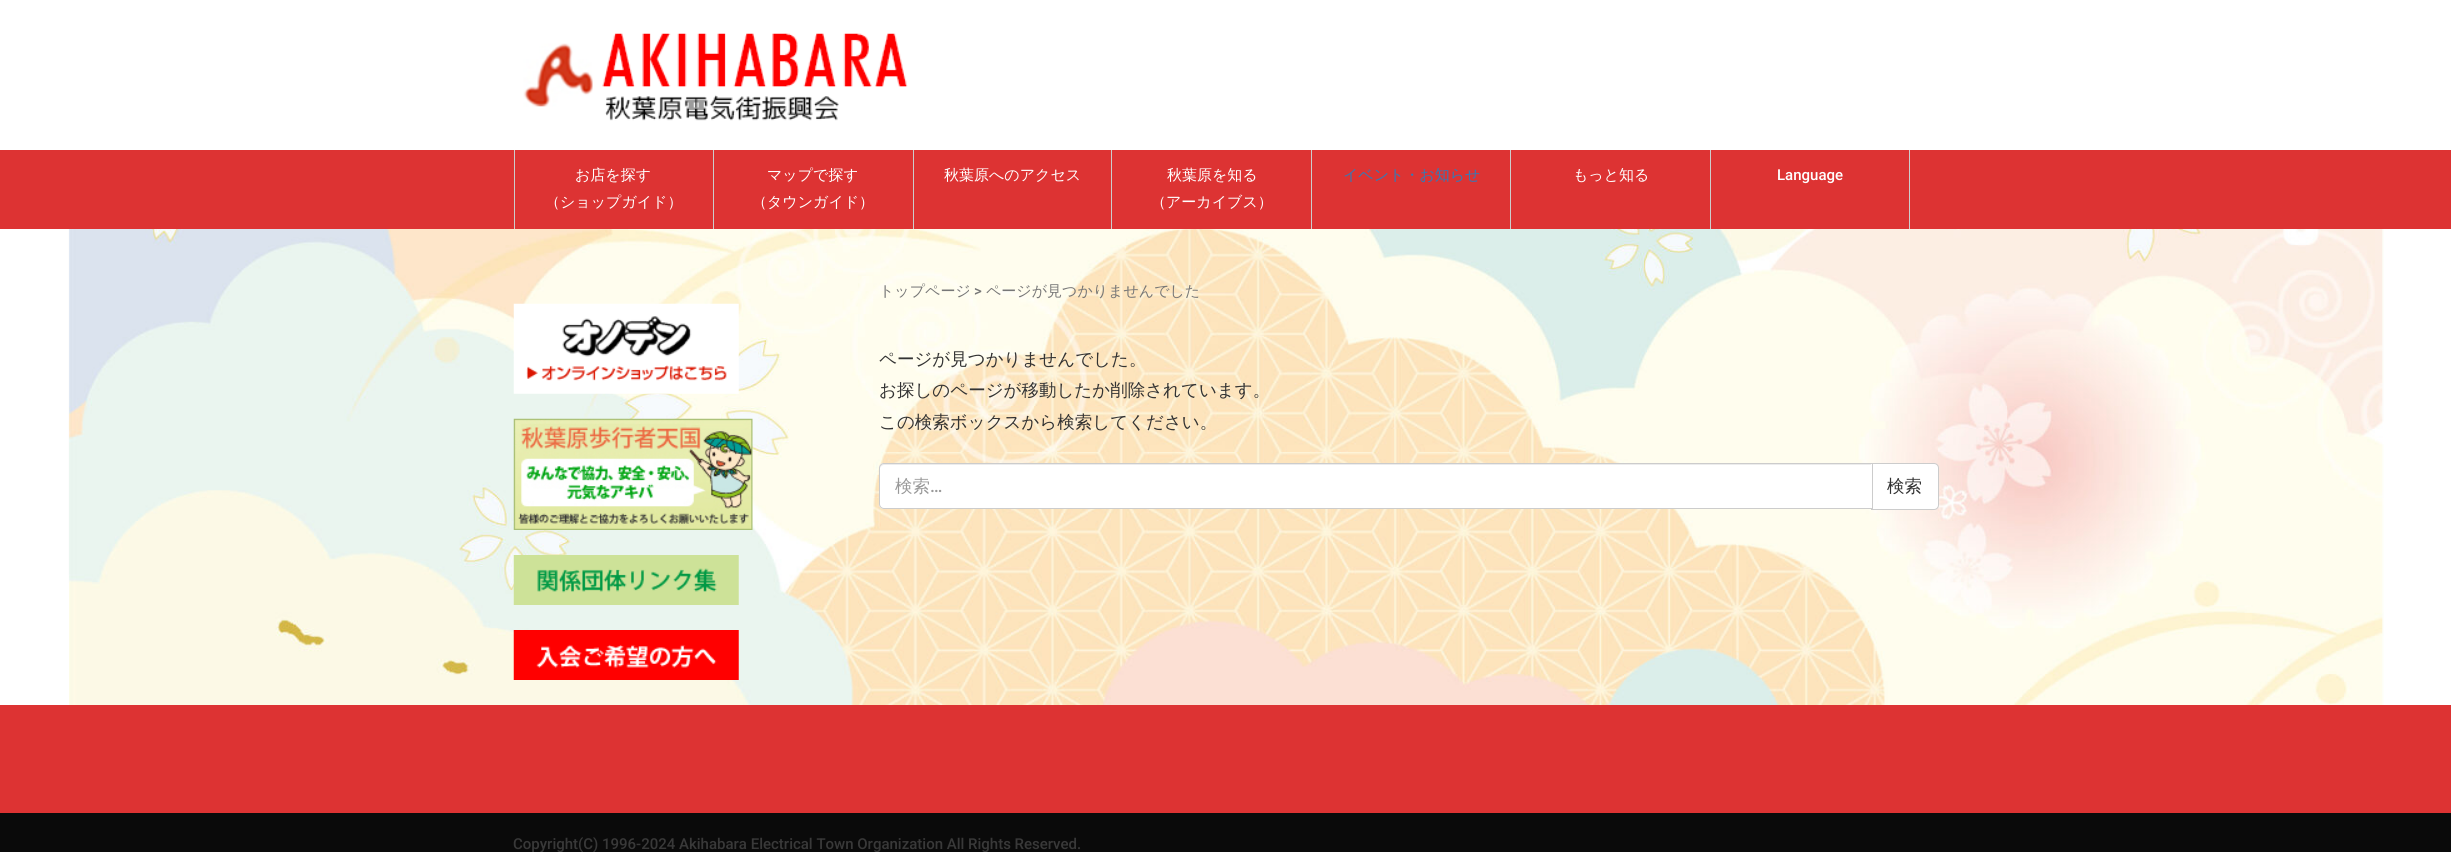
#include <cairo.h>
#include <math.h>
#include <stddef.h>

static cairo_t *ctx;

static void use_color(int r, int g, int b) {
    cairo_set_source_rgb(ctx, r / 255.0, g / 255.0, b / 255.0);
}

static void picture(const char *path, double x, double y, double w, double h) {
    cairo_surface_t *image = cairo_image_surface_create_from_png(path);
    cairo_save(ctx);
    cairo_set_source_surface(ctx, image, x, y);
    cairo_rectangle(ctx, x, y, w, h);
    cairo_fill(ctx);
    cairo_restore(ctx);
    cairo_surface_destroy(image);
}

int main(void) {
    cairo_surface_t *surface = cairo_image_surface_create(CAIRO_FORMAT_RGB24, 2451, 852);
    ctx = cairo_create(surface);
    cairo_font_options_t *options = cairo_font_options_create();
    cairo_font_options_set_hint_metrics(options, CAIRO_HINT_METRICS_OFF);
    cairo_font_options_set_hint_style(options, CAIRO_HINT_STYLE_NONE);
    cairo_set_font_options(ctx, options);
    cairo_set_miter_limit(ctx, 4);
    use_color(255, 255, 255);
    cairo_paint(ctx);
    picture("img1.png", 68, 229, 2316, 476);
    picture("img2.png", 523, 33, 385, 88);
    use_color(221, 51, 51);
    cairo_rectangle(ctx, 0, 150, 2451, 79);
    cairo_fill(ctx);
    use_color(204, 204, 204);
    cairo_rectangle(ctx, 514, 150, 1, 79);
    cairo_fill(ctx);
    cairo_select_font_face(ctx, "WenQuanYi Zen Hei Medium", CAIRO_FONT_SLANT_NORMAL, CAIRO_FONT_WEIGHT_NORMAL);
    cairo_set_font_size(ctx, 15);
    use_color(255, 255, 255);
    cairo_move_to(ctx, 575, 180);
    cairo_show_text(ctx, "お店を探す");
    cairo_move_to(ctx, 545, 207);
    cairo_show_text(ctx, "（ショップガイド）");
    use_color(204, 204, 204);
    cairo_rectangle(ctx, 713, 150, 1, 79);
    cairo_fill(ctx);
    use_color(255, 255, 255);
    cairo_move_to(ctx, 767, 180);
    cairo_show_text(ctx, "マップで探す");
    cairo_move_to(ctx, 752, 207);
    cairo_show_text(ctx, "（タウンガイド）");
    use_color(204, 204, 204);
    cairo_rectangle(ctx, 913, 150, 1, 79);
    cairo_fill(ctx);
    use_color(255, 255, 255);
    cairo_move_to(ctx, 944, 180);
    cairo_show_text(ctx, "秋葉原へのアクセス");
    use_color(204, 204, 204);
    cairo_rectangle(ctx, 1111, 150, 1, 79);
    cairo_fill(ctx);
    use_color(255, 255, 255);
    cairo_move_to(ctx, 1167, 180);
    cairo_show_text(ctx, "秋葉原を知る");
    cairo_move_to(ctx, 1151, 207);
    cairo_show_text(ctx, "（アーカイブス）");
    use_color(204, 204, 204);
    cairo_rectangle(ctx, 1311, 150, 1, 79);
    cairo_fill(ctx);
    use_color(51, 122, 183);
    cairo_move_to(ctx, 1343, 180);
    cairo_show_text(ctx, "イベント・お知らせ");
    use_color(204, 204, 204);
    cairo_rectangle(ctx, 1510, 150, 1, 79);
    cairo_fill(ctx);
    use_color(255, 255, 255);
    cairo_move_to(ctx, 1573, 180);
    cairo_show_text(ctx, "もっと知る");
    use_color(204, 204, 204);
    cairo_rectangle(ctx, 1909, 150, 1, 79);
    cairo_fill(ctx);
    cairo_rectangle(ctx, 1710, 150, 1, 79);
    cairo_fill(ctx);
    cairo_select_font_face(ctx, "Roboto Medium", CAIRO_FONT_SLANT_NORMAL, CAIRO_FONT_WEIGHT_NORMAL);
    use_color(255, 255, 255);
    cairo_move_to(ctx, 1777, 180);
    cairo_show_text(ctx, "Language");
    picture("img3.png", 513, 303, 226, 91);
    picture("img4.png", 513, 418, 240, 112);
    picture("img5.png", 513, 555, 226, 50);
    picture("img6.png", 513, 630, 226, 50);
    cairo_select_font_face(ctx, "WenQuanYi Zen Hei Medium", CAIRO_FONT_SLANT_NORMAL, CAIRO_FONT_WEIGHT_NORMAL);
    use_color(119, 119, 119);
    cairo_move_to(ctx, 879, 296);
    cairo_show_text(ctx, "トップページ");
    cairo_select_font_face(ctx, "Roboto Medium", CAIRO_FONT_SLANT_NORMAL, CAIRO_FONT_WEIGHT_NORMAL);
    cairo_move_to(ctx, 974, 296);
    cairo_show_text(ctx, ">");
    cairo_select_font_face(ctx, "WenQuanYi Zen Hei Medium", CAIRO_FONT_SLANT_NORMAL, CAIRO_FONT_WEIGHT_NORMAL);
    cairo_move_to(ctx, 986, 296);
    cairo_show_text(ctx, "ページが見つかりませんでした");
    cairo_set_font_size(ctx, 17.5);
    use_color(51, 51, 51);
    cairo_move_to(ctx, 879, 365);
    cairo_show_text(ctx, "ページが見つかりませんでした。");
    cairo_move_to(ctx, 879, 396);
    cairo_show_text(ctx, "お探しのページが移動したか削除されています。");
    cairo_move_to(ctx, 879, 428);
    cairo_show_text(ctx, "この検索ボックスから検索してください。");
    use_color(255, 255, 255);
    cairo_new_path(ctx);
    cairo_move_to(ctx, 1871.5, 463.5);
    cairo_line_to(ctx, 1934, 463.5);
    cairo_curve_to(ctx, 1936.5, 463.5, 1938.5, 465.5, 1938.5, 468);
    cairo_line_to(ctx, 1938.5, 505);
    cairo_curve_to(ctx, 1938.5, 507.5, 1936.5, 509.5, 1934, 509.5);
    cairo_line_to(ctx, 1871.5, 509.5);
    cairo_close_path(ctx);
    cairo_fill_preserve(ctx);
    use_color(204, 204, 204);
    cairo_set_line_width(ctx, 1);
    cairo_stroke(ctx);
    use_color(255, 255, 255);
    cairo_new_path(ctx);
    cairo_move_to(ctx, 884, 463);
    cairo_line_to(ctx, 1873, 463);
    cairo_line_to(ctx, 1873, 509);
    cairo_line_to(ctx, 884, 509);
    cairo_curve_to(ctx, 881, 509, 879, 507, 879, 504);
    cairo_line_to(ctx, 879, 468);
    cairo_curve_to(ctx, 879, 465, 881, 463, 884, 463);
    cairo_close_path(ctx);
    cairo_fill(ctx);
    use_color(236, 236, 236);
    cairo_new_path(ctx);
    cairo_move_to(ctx, 884, 465);
    cairo_line_to(ctx, 1871, 465);
    cairo_line_to(ctx, 1871, 464);
    cairo_line_to(ctx, 884, 464);
    cairo_curve_to(ctx, 881, 464, 880, 466, 880, 469);
    cairo_curve_to(ctx, 880, 467, 882, 465, 884, 465);
    cairo_close_path(ctx);
    cairo_fill(ctx);
    cairo_new_path(ctx);
    cairo_move_to(ctx, 884, 463.5);
    cairo_line_to(ctx, 1872.5, 463.5);
    cairo_line_to(ctx, 1872.5, 508.5);
    cairo_line_to(ctx, 884, 508.5);
    cairo_curve_to(ctx, 881.5, 508.5, 879.5, 506.5, 879.5, 504);
    cairo_line_to(ctx, 879.5, 468);
    cairo_curve_to(ctx, 879.5, 465.5, 881.5, 463.5, 884, 463.5);
    cairo_close_path(ctx);
    use_color(204, 204, 204);
    cairo_stroke(ctx);
    use_color(153, 153, 153);
    cairo_move_to(ctx, 895, 492);
    cairo_show_text(ctx, "検索");
    cairo_select_font_face(ctx, "Roboto Medium", CAIRO_FONT_SLANT_NORMAL, CAIRO_FONT_WEIGHT_NORMAL);
    cairo_move_to(ctx, 930, 492);
    cairo_show_text(ctx, "…");
    cairo_select_font_face(ctx, "WenQuanYi Zen Hei Medium", CAIRO_FONT_SLANT_NORMAL, CAIRO_FONT_WEIGHT_NORMAL);
    use_color(51, 51, 51);
    cairo_move_to(ctx, 1887, 492);
    cairo_show_text(ctx, "検索");
    use_color(221, 51, 51);
    cairo_rectangle(ctx, 0, 705, 2451, 108);
    cairo_fill(ctx);
    use_color(10, 10, 10);
    cairo_rectangle(ctx, 0, 813, 2451, 39);
    cairo_fill(ctx);
    cairo_select_font_face(ctx, "Roboto Medium", CAIRO_FONT_SLANT_NORMAL, CAIRO_FONT_WEIGHT_NORMAL);
    cairo_set_font_size(ctx, 15);
    use_color(57, 57, 57);
    cairo_move_to(ctx, 513, 849);
    cairo_show_text(ctx, "Copyright(C) 1996-2024 Akihabara Electrical Town Organization All Rights Reserved.");
    cairo_surface_write_to_png(surface, "result.png");
    cairo_font_options_destroy(options);
    cairo_destroy(ctx);
    cairo_surface_destroy(surface);
    return 0;
}
